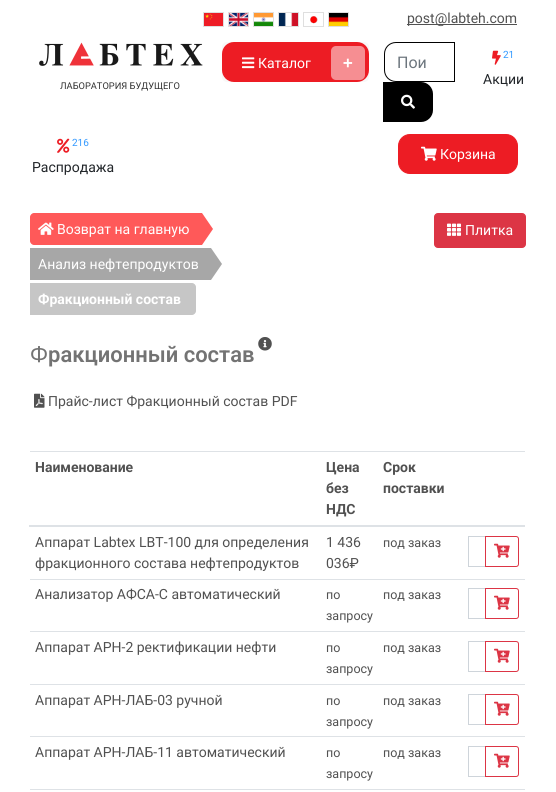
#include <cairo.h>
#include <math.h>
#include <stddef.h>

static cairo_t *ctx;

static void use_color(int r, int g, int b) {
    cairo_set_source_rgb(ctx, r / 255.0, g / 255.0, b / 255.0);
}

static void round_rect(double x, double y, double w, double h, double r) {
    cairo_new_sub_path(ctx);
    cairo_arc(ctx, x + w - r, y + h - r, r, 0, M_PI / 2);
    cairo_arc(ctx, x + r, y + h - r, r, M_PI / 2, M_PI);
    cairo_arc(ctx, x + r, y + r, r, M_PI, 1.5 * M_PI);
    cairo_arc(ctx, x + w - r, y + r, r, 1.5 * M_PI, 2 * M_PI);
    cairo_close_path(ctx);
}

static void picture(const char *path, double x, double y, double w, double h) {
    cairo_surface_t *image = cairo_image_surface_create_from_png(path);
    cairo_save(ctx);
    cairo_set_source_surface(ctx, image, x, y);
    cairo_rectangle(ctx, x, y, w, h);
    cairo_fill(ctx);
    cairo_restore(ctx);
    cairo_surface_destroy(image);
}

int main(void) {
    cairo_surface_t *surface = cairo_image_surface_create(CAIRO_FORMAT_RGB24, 556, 792);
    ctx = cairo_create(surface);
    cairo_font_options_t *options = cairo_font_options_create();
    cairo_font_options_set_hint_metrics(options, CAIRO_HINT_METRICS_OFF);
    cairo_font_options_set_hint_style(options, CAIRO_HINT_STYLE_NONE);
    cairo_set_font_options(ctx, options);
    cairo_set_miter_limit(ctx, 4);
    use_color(255, 255, 255);
    cairo_paint(ctx);
    cairo_rectangle(ctx, 203.5, 12.5, 20, 14);
    use_color(223, 223, 223);
    cairo_set_line_width(ctx, 1);
    cairo_stroke(ctx);
    cairo_rectangle(ctx, 228.5, 12.5, 20, 14);
    cairo_stroke(ctx);
    cairo_rectangle(ctx, 253.5, 12.5, 20, 14);
    cairo_stroke(ctx);
    cairo_rectangle(ctx, 278.5, 12.5, 20, 14);
    cairo_stroke(ctx);
    cairo_rectangle(ctx, 303.5, 12.5, 20, 14);
    cairo_stroke(ctx);
    cairo_rectangle(ctx, 328.5, 12.5, 20, 14);
    cairo_stroke(ctx);
    picture("img1.png", 204, 13, 19, 13);
    picture("img2.png", 229, 13, 19, 13);
    picture("img3.png", 254, 13, 19, 13);
    picture("img4.png", 279, 13, 19, 13);
    picture("img5.png", 310, 16, 8, 8);
    picture("img6.png", 329, 13, 19, 13);
    use_color(81, 81, 81);
    cairo_rectangle(ctx, 407, 24, 110, 1);
    cairo_fill(ctx);
    cairo_select_font_face(ctx, "Roboto", CAIRO_FONT_SLANT_NORMAL, CAIRO_FONT_WEIGHT_NORMAL);
    cairo_set_font_size(ctx, 14);
    cairo_move_to(ctx, 407, 23);
    cairo_show_text(ctx, "post@labteh.com");
    use_color(248, 248, 248);
    round_rect(222, 42, 147, 40, 5);
    cairo_fill(ctx);
    use_color(237, 28, 36);
    round_rect(222, 42, 147, 40, 12);
    cairo_fill(ctx);
    picture("img7.png", 242, 57, 13, 12);
    use_color(255, 255, 255);
    cairo_move_to(ctx, 258, 68);
    cairo_show_text(ctx, "Каталог");
    use_color(246, 142, 146);
    round_rect(331, 46, 34, 34, 5);
    cairo_fill(ctx);
    cairo_select_font_face(ctx, "DejaVu Sans Mono", CAIRO_FONT_SLANT_NORMAL, CAIRO_FONT_WEIGHT_BOLD);
    cairo_set_font_size(ctx, 16);
    use_color(255, 255, 255);
    cairo_move_to(ctx, 343, 68);
    cairo_show_text(ctx, "+");
    cairo_new_path(ctx);
    cairo_move_to(ctx, 396, 42.5);
    cairo_line_to(ctx, 454.5, 42.5);
    cairo_line_to(ctx, 454.5, 81.5);
    cairo_line_to(ctx, 396, 81.5);
    cairo_curve_to(ctx, 389.5, 81.5, 384.5, 76.5, 384.5, 70);
    cairo_line_to(ctx, 384.5, 54);
    cairo_curve_to(ctx, 384.5, 47.5, 389.5, 42.5, 396, 42.5);
    cairo_close_path(ctx);
    use_color(0, 0, 0);
    cairo_stroke(ctx);
    cairo_select_font_face(ctx, "Roboto", CAIRO_FONT_SLANT_NORMAL, CAIRO_FONT_WEIGHT_NORMAL);
    use_color(108, 117, 125);
    cairo_move_to(ctx, 397, 68);
    cairo_show_text(ctx, "Пои");
    use_color(0, 0, 0);
    cairo_new_path(ctx);
    cairo_move_to(ctx, 384, 83);
    cairo_line_to(ctx, 421, 83);
    cairo_curve_to(ctx, 427, 83, 432, 88, 432, 94);
    cairo_line_to(ctx, 432, 110);
    cairo_curve_to(ctx, 432, 116, 427, 121, 421, 121);
    cairo_line_to(ctx, 384, 121);
    cairo_close_path(ctx);
    cairo_fill_preserve(ctx);
    cairo_set_line_width(ctx, 2);
    cairo_stroke(ctx);
    picture("img8.png", 401, 94, 14, 15);
    picture("img9.png", 492, 50, 9, 15);
    cairo_set_font_size(ctx, 10);
    use_color(51, 153, 255);
    cairo_move_to(ctx, 503, 58);
    cairo_show_text(ctx, "21");
    cairo_set_font_size(ctx, 14);
    use_color(33, 37, 41);
    cairo_move_to(ctx, 483, 84);
    cairo_show_text(ctx, "Акции");
    picture("img10.png", 39, 42, 164, 24);
    cairo_set_font_size(ctx, 9.3);
    use_color(50, 50, 50);
    cairo_move_to(ctx, 60, 89);
    cairo_show_text(ctx, "ЛАБОРАТОРИЯ БУДУЩЕГО");
    picture("img11.png", 57, 138, 13, 15);
    cairo_set_font_size(ctx, 10);
    use_color(51, 153, 255);
    cairo_move_to(ctx, 72, 146);
    cairo_show_text(ctx, "216");
    cairo_set_font_size(ctx, 14);
    use_color(33, 37, 41);
    cairo_move_to(ctx, 32, 172);
    cairo_show_text(ctx, "Распродажа");
    use_color(237, 28, 36);
    round_rect(398.5, 134.5, 119, 39, 11.5);
    cairo_fill_preserve(ctx);
    cairo_set_line_width(ctx, 1);
    cairo_stroke(ctx);
    picture("img12.png", 421, 146, 16, 15);
    use_color(255, 255, 255);
    cairo_move_to(ctx, 440, 159);
    cairo_show_text(ctx, "Корзина");
    use_color(255, 89, 89);
    cairo_new_path(ctx);
    cairo_move_to(ctx, 34, 213);
    cairo_line_to(ctx, 202, 213);
    cairo_line_to(ctx, 202, 245);
    cairo_line_to(ctx, 34, 245);
    cairo_curve_to(ctx, 32, 245, 30, 243, 30, 241);
    cairo_line_to(ctx, 30, 217);
    cairo_curve_to(ctx, 30, 215, 32, 213, 34, 213);
    cairo_close_path(ctx);
    cairo_fill(ctx);
    picture("img13.png", 38, 222, 16, 13);
    use_color(255, 255, 255);
    cairo_move_to(ctx, 57, 234);
    cairo_show_text(ctx, "Возврат на главную");
    use_color(255, 89, 89);
    cairo_new_path(ctx);
    cairo_move_to(ctx, 202, 245);
    cairo_line_to(ctx, 202, 213);
    cairo_line_to(ctx, 213, 229);
    cairo_close_path(ctx);
    cairo_fill(ctx);
    use_color(167, 167, 167);
    cairo_rectangle(ctx, 30, 248, 181, 32);
    cairo_fill(ctx);
    use_color(255, 255, 255);
    cairo_move_to(ctx, 38, 269);
    cairo_show_text(ctx, "Анализ нефтепродуктов");
    use_color(167, 167, 167);
    cairo_new_path(ctx);
    cairo_move_to(ctx, 211, 280);
    cairo_line_to(ctx, 211, 248);
    cairo_line_to(ctx, 222, 264);
    cairo_close_path(ctx);
    cairo_fill(ctx);
    use_color(198, 198, 198);
    cairo_new_path(ctx);
    cairo_move_to(ctx, 30, 283);
    cairo_line_to(ctx, 192, 283);
    cairo_curve_to(ctx, 194, 283, 196, 285, 196, 287);
    cairo_line_to(ctx, 196, 311);
    cairo_curve_to(ctx, 196, 313, 194, 315, 192, 315);
    cairo_line_to(ctx, 30, 315);
    cairo_close_path(ctx);
    cairo_fill(ctx);
    cairo_select_font_face(ctx, "Roboto", CAIRO_FONT_SLANT_NORMAL, CAIRO_FONT_WEIGHT_BOLD);
    use_color(255, 255, 255);
    cairo_move_to(ctx, 38, 304);
    cairo_show_text(ctx, "Фракционный состав");
    use_color(220, 53, 69);
    round_rect(434.5, 213.5, 91, 34, 3.5);
    cairo_fill_preserve(ctx);
    cairo_stroke(ctx);
    picture("img14.png", 447, 223, 14, 13);
    cairo_select_font_face(ctx, "Roboto", CAIRO_FONT_SLANT_NORMAL, CAIRO_FONT_WEIGHT_NORMAL);
    use_color(255, 255, 255);
    cairo_move_to(ctx, 465, 235);
    cairo_show_text(ctx, "Плитка");
    cairo_select_font_face(ctx, "Noto Sans", CAIRO_FONT_SLANT_NORMAL, CAIRO_FONT_WEIGHT_NORMAL);
    cairo_set_font_size(ctx, 22);
    use_color(115, 115, 115);
    cairo_move_to(ctx, 30, 362);
    cairo_show_text(ctx, "Ф");
    cairo_select_font_face(ctx, "Roboto SemiBold", CAIRO_FONT_SLANT_NORMAL, CAIRO_FONT_WEIGHT_NORMAL);
    cairo_move_to(ctx, 48, 362);
    cairo_show_text(ctx, "ракционный состав");
    picture("img15.png", 258, 337, 14, 14);
    picture("img16.png", 34, 393, 11, 15);
    cairo_select_font_face(ctx, "Roboto", CAIRO_FONT_SLANT_NORMAL, CAIRO_FONT_WEIGHT_NORMAL);
    cairo_set_font_size(ctx, 14);
    use_color(81, 81, 81);
    cairo_move_to(ctx, 48, 406);
    cairo_show_text(ctx, "Прайс-лист Фракционный состав PDF");
    use_color(222, 226, 230);
    cairo_rectangle(ctx, 30, 451, 495, 1);
    cairo_fill(ctx);
    cairo_select_font_face(ctx, "Roboto", CAIRO_FONT_SLANT_NORMAL, CAIRO_FONT_WEIGHT_BOLD);
    use_color(81, 81, 81);
    cairo_move_to(ctx, 35, 472);
    cairo_show_text(ctx, "Наименование");
    cairo_move_to(ctx, 326, 472);
    cairo_show_text(ctx, "Цена");
    cairo_move_to(ctx, 326, 493);
    cairo_show_text(ctx, "без");
    cairo_move_to(ctx, 326, 514);
    cairo_show_text(ctx, "НДС");
    cairo_move_to(ctx, 383, 472);
    cairo_show_text(ctx, "Срок");
    cairo_move_to(ctx, 383, 493);
    cairo_show_text(ctx, "поставки");
    use_color(222, 226, 230);
    cairo_rectangle(ctx, 29, 525, 496, 2);
    cairo_fill(ctx);
    cairo_select_font_face(ctx, "Roboto", CAIRO_FONT_SLANT_NORMAL, CAIRO_FONT_WEIGHT_NORMAL);
    use_color(81, 81, 81);
    cairo_move_to(ctx, 35, 547);
    cairo_show_text(ctx, "Аппарат Labtex LBT-100 для определения");
    cairo_move_to(ctx, 35, 568);
    cairo_show_text(ctx, "фракционного состава нефтепродуктов");
    cairo_move_to(ctx, 326, 547);
    cairo_show_text(ctx, "1 436");
    cairo_move_to(ctx, 326, 568);
    cairo_show_text(ctx, "036₽");
    cairo_set_font_size(ctx, 12.5);
    cairo_move_to(ctx, 383, 547);
    cairo_show_text(ctx, "под заказ");
    cairo_rectangle(ctx, 468.5, 536.5, 17, 30);
    use_color(206, 212, 218);
    cairo_stroke(ctx);
    cairo_new_path(ctx);
    cairo_move_to(ctx, 485.5, 536.5);
    cairo_line_to(ctx, 516, 536.5);
    cairo_curve_to(ctx, 517.5, 536.5, 518.5, 537.5, 518.5, 539);
    cairo_line_to(ctx, 518.5, 564);
    cairo_curve_to(ctx, 518.5, 565.5, 517.5, 566.5, 516, 566.5);
    cairo_line_to(ctx, 485.5, 566.5);
    cairo_close_path(ctx);
    use_color(220, 53, 69);
    cairo_stroke(ctx);
    picture("img17.png", 494, 543, 16, 15);
    use_color(222, 226, 230);
    cairo_rectangle(ctx, 30, 579, 495, 1);
    cairo_fill(ctx);
    cairo_rectangle(ctx, 468.5, 588.5, 17, 30);
    use_color(206, 212, 218);
    cairo_stroke(ctx);
    cairo_new_path(ctx);
    cairo_move_to(ctx, 485.5, 588.5);
    cairo_line_to(ctx, 516, 588.5);
    cairo_curve_to(ctx, 517.5, 588.5, 518.5, 589.5, 518.5, 591);
    cairo_line_to(ctx, 518.5, 616);
    cairo_curve_to(ctx, 518.5, 617.5, 517.5, 618.5, 516, 618.5);
    cairo_line_to(ctx, 485.5, 618.5);
    cairo_close_path(ctx);
    use_color(220, 53, 69);
    cairo_stroke(ctx);
    picture("img17.png", 494, 595, 16, 15);
    cairo_set_font_size(ctx, 14);
    use_color(81, 81, 81);
    cairo_move_to(ctx, 35, 599);
    cairo_show_text(ctx, "Анализатор АФСА-С автоматический");
    cairo_set_font_size(ctx, 12.5);
    cairo_move_to(ctx, 326, 599);
    cairo_show_text(ctx, "по");
    cairo_move_to(ctx, 326, 620);
    cairo_show_text(ctx, "запросу");
    cairo_move_to(ctx, 383, 599);
    cairo_show_text(ctx, "под заказ");
    use_color(222, 226, 230);
    cairo_rectangle(ctx, 30, 631, 495, 1);
    cairo_fill(ctx);
    cairo_rectangle(ctx, 468.5, 641.5, 17, 30);
    use_color(206, 212, 218);
    cairo_stroke(ctx);
    cairo_new_path(ctx);
    cairo_move_to(ctx, 485.5, 641.5);
    cairo_line_to(ctx, 516, 641.5);
    cairo_curve_to(ctx, 517.5, 641.5, 518.5, 642.5, 518.5, 644);
    cairo_line_to(ctx, 518.5, 669);
    cairo_curve_to(ctx, 518.5, 670.5, 517.5, 671.5, 516, 671.5);
    cairo_line_to(ctx, 485.5, 671.5);
    cairo_close_path(ctx);
    use_color(220, 53, 69);
    cairo_stroke(ctx);
    picture("img17.png", 494, 648, 16, 15);
    cairo_set_font_size(ctx, 14);
    use_color(81, 81, 81);
    cairo_move_to(ctx, 35, 652);
    cairo_show_text(ctx, "Аппарат АРН-2 ректификации нефти");
    cairo_set_font_size(ctx, 12.5);
    cairo_move_to(ctx, 326, 652);
    cairo_show_text(ctx, "по");
    cairo_move_to(ctx, 326, 673);
    cairo_show_text(ctx, "запросу");
    cairo_move_to(ctx, 383, 652);
    cairo_show_text(ctx, "под заказ");
    use_color(222, 226, 230);
    cairo_rectangle(ctx, 30, 684, 495, 1);
    cairo_fill(ctx);
    cairo_rectangle(ctx, 468.5, 694.5, 17, 30);
    use_color(206, 212, 218);
    cairo_stroke(ctx);
    cairo_new_path(ctx);
    cairo_move_to(ctx, 485.5, 694.5);
    cairo_line_to(ctx, 516, 694.5);
    cairo_curve_to(ctx, 517.5, 694.5, 518.5, 695.5, 518.5, 697);
    cairo_line_to(ctx, 518.5, 722);
    cairo_curve_to(ctx, 518.5, 723.5, 517.5, 724.5, 516, 724.5);
    cairo_line_to(ctx, 485.5, 724.5);
    cairo_close_path(ctx);
    use_color(220, 53, 69);
    cairo_stroke(ctx);
    picture("img17.png", 494, 701, 16, 15);
    cairo_set_font_size(ctx, 14);
    use_color(81, 81, 81);
    cairo_move_to(ctx, 35, 705);
    cairo_show_text(ctx, "Аппарат АРН-ЛАБ-03 ручной");
    cairo_set_font_size(ctx, 12.5);
    cairo_move_to(ctx, 326, 705);
    cairo_show_text(ctx, "по");
    cairo_move_to(ctx, 326, 726);
    cairo_show_text(ctx, "запросу");
    cairo_move_to(ctx, 383, 705);
    cairo_show_text(ctx, "под заказ");
    use_color(222, 226, 230);
    cairo_rectangle(ctx, 30, 736, 495, 1);
    cairo_fill(ctx);
    cairo_rectangle(ctx, 468.5, 746.5, 17, 30);
    use_color(206, 212, 218);
    cairo_stroke(ctx);
    cairo_new_path(ctx);
    cairo_move_to(ctx, 485.5, 746.5);
    cairo_line_to(ctx, 516, 746.5);
    cairo_curve_to(ctx, 517.5, 746.5, 518.5, 747.5, 518.5, 749);
    cairo_line_to(ctx, 518.5, 774);
    cairo_curve_to(ctx, 518.5, 775.5, 517.5, 776.5, 516, 776.5);
    cairo_line_to(ctx, 485.5, 776.5);
    cairo_close_path(ctx);
    use_color(220, 53, 69);
    cairo_stroke(ctx);
    picture("img17.png", 494, 753, 16, 15);
    cairo_set_font_size(ctx, 14);
    use_color(81, 81, 81);
    cairo_move_to(ctx, 35, 757);
    cairo_show_text(ctx, "Аппарат АРН-ЛАБ-11 автоматический");
    cairo_set_font_size(ctx, 12.5);
    cairo_move_to(ctx, 326, 757);
    cairo_show_text(ctx, "по");
    cairo_move_to(ctx, 326, 778);
    cairo_show_text(ctx, "запросу");
    cairo_move_to(ctx, 383, 757);
    cairo_show_text(ctx, "под заказ");
    use_color(222, 226, 230);
    cairo_rectangle(ctx, 30, 789, 495, 1);
    cairo_fill(ctx);
    cairo_surface_write_to_png(surface, "result.png");
    cairo_font_options_destroy(options);
    cairo_destroy(ctx);
    cairo_surface_destroy(surface);
    return 0;
}
